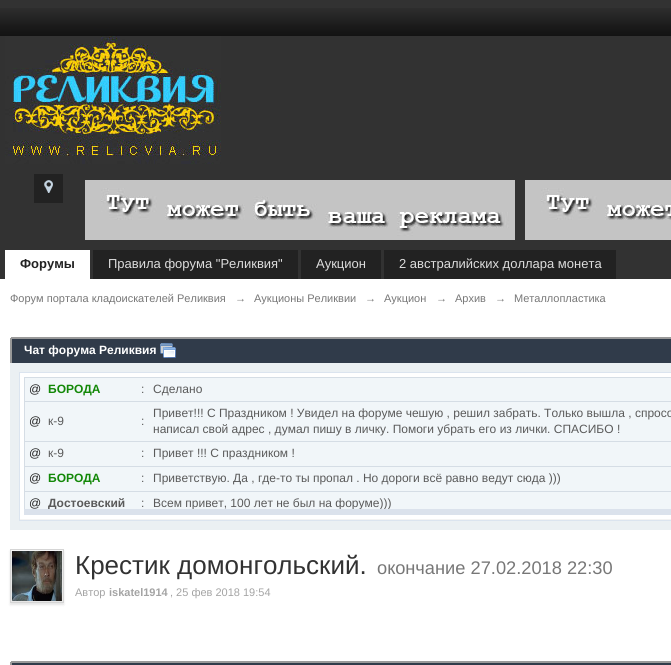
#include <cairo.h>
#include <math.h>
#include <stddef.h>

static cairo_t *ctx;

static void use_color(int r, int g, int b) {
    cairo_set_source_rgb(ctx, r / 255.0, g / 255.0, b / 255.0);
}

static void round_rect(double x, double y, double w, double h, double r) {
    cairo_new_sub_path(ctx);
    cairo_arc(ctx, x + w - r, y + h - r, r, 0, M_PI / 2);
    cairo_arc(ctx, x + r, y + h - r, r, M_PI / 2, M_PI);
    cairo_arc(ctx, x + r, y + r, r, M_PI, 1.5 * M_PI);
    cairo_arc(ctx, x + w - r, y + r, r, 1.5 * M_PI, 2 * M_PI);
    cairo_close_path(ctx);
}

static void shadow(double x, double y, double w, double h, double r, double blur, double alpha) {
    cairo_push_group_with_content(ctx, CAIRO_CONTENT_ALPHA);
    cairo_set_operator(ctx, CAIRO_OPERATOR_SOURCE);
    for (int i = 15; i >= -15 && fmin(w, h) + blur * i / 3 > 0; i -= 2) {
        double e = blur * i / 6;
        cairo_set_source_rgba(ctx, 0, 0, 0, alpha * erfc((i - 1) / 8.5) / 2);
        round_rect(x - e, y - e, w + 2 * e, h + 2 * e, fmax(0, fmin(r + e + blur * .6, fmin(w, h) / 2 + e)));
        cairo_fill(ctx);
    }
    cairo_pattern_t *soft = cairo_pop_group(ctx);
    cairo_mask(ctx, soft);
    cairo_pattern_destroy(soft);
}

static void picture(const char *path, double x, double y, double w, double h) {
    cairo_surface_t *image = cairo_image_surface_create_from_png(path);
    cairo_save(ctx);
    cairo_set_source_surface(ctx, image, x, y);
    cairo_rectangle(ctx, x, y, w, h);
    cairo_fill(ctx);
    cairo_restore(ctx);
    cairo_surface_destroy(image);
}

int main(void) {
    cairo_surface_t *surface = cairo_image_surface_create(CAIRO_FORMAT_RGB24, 671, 665);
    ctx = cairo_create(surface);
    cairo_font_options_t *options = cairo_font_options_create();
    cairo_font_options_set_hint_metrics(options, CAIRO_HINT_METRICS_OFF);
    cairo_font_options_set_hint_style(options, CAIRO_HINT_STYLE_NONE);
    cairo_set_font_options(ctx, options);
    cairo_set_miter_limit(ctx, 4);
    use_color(50, 50, 50);
    cairo_paint(ctx);
    picture("img1.png", 0, 8, 671, 28);
    picture("img2.png", 5, 36, 216, 128);
    picture("img3.png", 85, 180, 430, 60);
    picture("img4.png", 525, 180, 146, 60);
    use_color(34, 34, 34);
    cairo_rectangle(ctx, 34, 174, 29, 29);
    cairo_fill(ctx);
    picture("img5.png", 44, 180, 9, 13);
    use_color(255, 255, 255);
    cairo_rectangle(ctx, 5, 250, 85, 29);
    cairo_fill(ctx);
    cairo_select_font_face(ctx, "Liberation Sans", CAIRO_FONT_SLANT_NORMAL, CAIRO_FONT_WEIGHT_BOLD);
    cairo_set_font_size(ctx, 13);
    use_color(34, 34, 34);
    cairo_move_to(ctx, 20, 268);
    cairo_show_text(ctx, "Форумы");
    cairo_rectangle(ctx, 93, 250, 205, 29);
    cairo_fill(ctx);
    cairo_select_font_face(ctx, "Liberation Sans", CAIRO_FONT_SLANT_NORMAL, CAIRO_FONT_WEIGHT_NORMAL);
    use_color(221, 221, 221);
    cairo_move_to(ctx, 108, 268);
    cairo_show_text(ctx, "Правила форума \"Реликвия\"");
    use_color(34, 34, 34);
    cairo_rectangle(ctx, 301, 250, 80, 29);
    cairo_fill(ctx);
    use_color(221, 221, 221);
    cairo_move_to(ctx, 316, 268);
    cairo_show_text(ctx, "Аукцион");
    use_color(34, 34, 34);
    cairo_rectangle(ctx, 384, 250, 232, 29);
    cairo_fill(ctx);
    use_color(221, 221, 221);
    cairo_move_to(ctx, 399, 268);
    cairo_show_text(ctx, "2 австралийских доллара монета");
    use_color(255, 255, 255);
    cairo_rectangle(ctx, 0, 279, 671, 386);
    cairo_fill(ctx);
    cairo_set_font_size(ctx, 11);
    use_color(119, 119, 119);
    cairo_move_to(ctx, 10, 302);
    cairo_show_text(ctx, "Форум портала кладоискателей Реликвия");
    cairo_move_to(ctx, 235, 302);
    cairo_show_text(ctx, "→");
    cairo_move_to(ctx, 254, 302);
    cairo_show_text(ctx, "Аукционы Реликвии");
    cairo_move_to(ctx, 365, 302);
    cairo_show_text(ctx, "→");
    cairo_move_to(ctx, 384, 302);
    cairo_show_text(ctx, "Аукцион");
    cairo_move_to(ctx, 436, 302);
    cairo_show_text(ctx, "→");
    cairo_move_to(ctx, 455, 302);
    cairo_show_text(ctx, "Архив");
    cairo_move_to(ctx, 495, 302);
    cairo_show_text(ctx, "→");
    cairo_move_to(ctx, 514, 302);
    cairo_show_text(ctx, "Металлопластика");
    use_color(48, 59, 74);
    cairo_rectangle(ctx, 12, 339, 659, 24);
    cairo_fill(ctx);
    use_color(153, 153, 153);
    cairo_rectangle(ctx, 11, 337, 660, 2);
    cairo_fill(ctx);
    cairo_rectangle(ctx, 10, 338, 2, 25);
    cairo_fill(ctx);
    cairo_select_font_face(ctx, "Liberation Sans", CAIRO_FONT_SLANT_NORMAL, CAIRO_FONT_WEIGHT_BOLD);
    cairo_set_font_size(ctx, 12);
    use_color(255, 255, 255);
    cairo_move_to(ctx, 24, 354);
    cairo_show_text(ctx, "Чат форума Реликвия");
    picture("img6.png", 160, 343, 16, 15);
    use_color(235, 240, 243);
    cairo_rectangle(ctx, 10, 363, 661, 167);
    cairo_fill(ctx);
    cairo_rectangle(ctx, 19.5, 372.5, 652, 148);
    use_color(219, 228, 239);
    cairo_set_line_width(ctx, 1);
    cairo_stroke(ctx);
    use_color(255, 255, 255);
    cairo_rectangle(ctx, 20, 373, 651, 146);
    cairo_fill(ctx);
    use_color(243, 243, 243);
    cairo_rectangle(ctx, 20, 519, 651, 1);
    cairo_fill(ctx);
    use_color(213, 221, 229);
    cairo_rectangle(ctx, 24, 377, 647, 1);
    cairo_fill(ctx);
    cairo_rectangle(ctx, 24, 377, 1, 132);
    cairo_fill(ctx);
    use_color(241, 246, 249);
    cairo_rectangle(ctx, 25, 378, 646, 23);
    cairo_fill(ctx);
    cairo_select_font_face(ctx, "Liberation Sans", CAIRO_FONT_SLANT_NORMAL, CAIRO_FONT_WEIGHT_NORMAL);
    use_color(34, 34, 34);
    cairo_move_to(ctx, 29, 393);
    cairo_show_text(ctx, "@");
    cairo_select_font_face(ctx, "Liberation Sans", CAIRO_FONT_SLANT_NORMAL, CAIRO_FONT_WEIGHT_BOLD);
    use_color(19, 136, 8);
    cairo_move_to(ctx, 48, 393);
    cairo_show_text(ctx, "БОРОДА");
    cairo_select_font_face(ctx, "Liberation Sans", CAIRO_FONT_SLANT_NORMAL, CAIRO_FONT_WEIGHT_NORMAL);
    use_color(90, 90, 90);
    cairo_move_to(ctx, 141, 393);
    cairo_show_text(ctx, ":");
    use_color(213, 221, 229);
    cairo_rectangle(ctx, 24, 401, 647, 1);
    cairo_fill(ctx);
    use_color(90, 90, 90);
    cairo_move_to(ctx, 153, 393);
    cairo_show_text(ctx, "Сделано");
    use_color(241, 246, 249);
    cairo_rectangle(ctx, 25, 402, 646, 39);
    cairo_fill(ctx);
    use_color(34, 34, 34);
    cairo_move_to(ctx, 29, 425);
    cairo_show_text(ctx, "@");
    use_color(90, 90, 90);
    cairo_move_to(ctx, 48, 425);
    cairo_show_text(ctx, "к-9");
    cairo_move_to(ctx, 141, 425);
    cairo_show_text(ctx, ":");
    use_color(213, 221, 229);
    cairo_rectangle(ctx, 24, 441, 647, 1);
    cairo_fill(ctx);
    use_color(90, 90, 90);
    cairo_move_to(ctx, 153, 417);
    cairo_show_text(ctx, "Привет!!! С Праздником ! Увидел на форуме чешую , решил забрать. Только вышла , спросо");
    cairo_move_to(ctx, 153, 433);
    cairo_show_text(ctx, "написал свой адрес , думал пишу в личку. Помоги убрать его из лички. СПАСИБО !");
    use_color(241, 246, 249);
    cairo_rectangle(ctx, 25, 442, 646, 24);
    cairo_fill(ctx);
    use_color(34, 34, 34);
    cairo_move_to(ctx, 29, 457);
    cairo_show_text(ctx, "@");
    use_color(90, 90, 90);
    cairo_move_to(ctx, 48, 457);
    cairo_show_text(ctx, "к-9");
    cairo_move_to(ctx, 141, 457);
    cairo_show_text(ctx, ":");
    use_color(213, 221, 229);
    cairo_rectangle(ctx, 24, 466, 647, 1);
    cairo_fill(ctx);
    use_color(90, 90, 90);
    cairo_move_to(ctx, 153, 457);
    cairo_show_text(ctx, "Привет !!! С праздником !");
    use_color(241, 246, 249);
    cairo_rectangle(ctx, 25, 467, 646, 24);
    cairo_fill(ctx);
    use_color(34, 34, 34);
    cairo_move_to(ctx, 29, 482);
    cairo_show_text(ctx, "@");
    cairo_select_font_face(ctx, "Liberation Sans", CAIRO_FONT_SLANT_NORMAL, CAIRO_FONT_WEIGHT_BOLD);
    use_color(19, 136, 8);
    cairo_move_to(ctx, 48, 482);
    cairo_show_text(ctx, "БОРОДА");
    cairo_select_font_face(ctx, "Liberation Sans", CAIRO_FONT_SLANT_NORMAL, CAIRO_FONT_WEIGHT_NORMAL);
    use_color(90, 90, 90);
    cairo_move_to(ctx, 141, 482);
    cairo_show_text(ctx, ":");
    use_color(213, 221, 229);
    cairo_rectangle(ctx, 24, 491, 647, 1);
    cairo_fill(ctx);
    use_color(90, 90, 90);
    cairo_move_to(ctx, 153, 482);
    cairo_show_text(ctx, "Приветствую. Да , где-то ты пропал . Но дороги всё равно ведут сюда )))");
    use_color(241, 246, 249);
    cairo_rectangle(ctx, 25, 492, 646, 17);
    cairo_fill(ctx);
    use_color(34, 34, 34);
    cairo_move_to(ctx, 29, 507);
    cairo_show_text(ctx, "@");
    cairo_save(ctx);
    cairo_rectangle(ctx, 24, 377, 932, 132);
    cairo_clip(ctx);
    cairo_select_font_face(ctx, "Liberation Sans", CAIRO_FONT_SLANT_NORMAL, CAIRO_FONT_WEIGHT_BOLD);
    use_color(90, 90, 90);
    cairo_move_to(ctx, 48, 507);
    cairo_show_text(ctx, "Достоевский");
    cairo_restore(ctx);
    use_color(90, 90, 90);
    cairo_move_to(ctx, 141, 507);
    cairo_show_text(ctx, ":");
    cairo_save(ctx);
    cairo_rectangle(ctx, 24, 377, 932, 132);
    cairo_clip(ctx);
    cairo_move_to(ctx, 153, 507);
    cairo_show_text(ctx, "Всем привет, 100 лет не был на форуме)))");
    cairo_restore(ctx);
    use_color(219, 226, 236);
    cairo_rectangle(ctx, 24, 509, 647, 6);
    cairo_fill(ctx);
    use_color(0, 0, 0);
    shadow(10, 551, 54, 54, 0, 1, 0.1);
    cairo_rectangle(ctx, 10.5, 549.5, 53, 53);
    use_color(213, 213, 213);
    cairo_stroke(ctx);
    picture("img7.png", 12, 551, 50, 50);
    cairo_set_font_size(ctx, 26);
    use_color(50, 50, 50);
    cairo_move_to(ctx, 75, 574);
    cairo_show_text(ctx, "Крестик домонгольский.");
    cairo_set_font_size(ctx, 18.25);
    use_color(119, 119, 119);
    cairo_move_to(ctx, 377, 574);
    cairo_show_text(ctx, "окончание 27.02.2018 22:30");
    cairo_set_font_size(ctx, 11);
    use_color(164, 164, 164);
    cairo_move_to(ctx, 75, 596);
    cairo_show_text(ctx, "Автор");
    cairo_select_font_face(ctx, "Liberation Sans", CAIRO_FONT_SLANT_NORMAL, CAIRO_FONT_WEIGHT_BOLD);
    cairo_move_to(ctx, 109, 596);
    cairo_show_text(ctx, "iskatel1914");
    cairo_select_font_face(ctx, "Liberation Sans", CAIRO_FONT_SLANT_NORMAL, CAIRO_FONT_WEIGHT_NORMAL);
    cairo_move_to(ctx, 170, 596);
    cairo_show_text(ctx, ", 25 фев 2018 19:54");
    use_color(48, 59, 74);
    cairo_rectangle(ctx, 12, 663, 659, 2);
    cairo_fill(ctx);
    use_color(153, 153, 153);
    cairo_rectangle(ctx, 11, 661, 660, 2);
    cairo_fill(ctx);
    cairo_rectangle(ctx, 10, 662, 2, 3);
    cairo_fill(ctx);
    cairo_surface_write_to_png(surface, "result.png");
    cairo_font_options_destroy(options);
    cairo_destroy(ctx);
    cairo_surface_destroy(surface);
    return 0;
}
